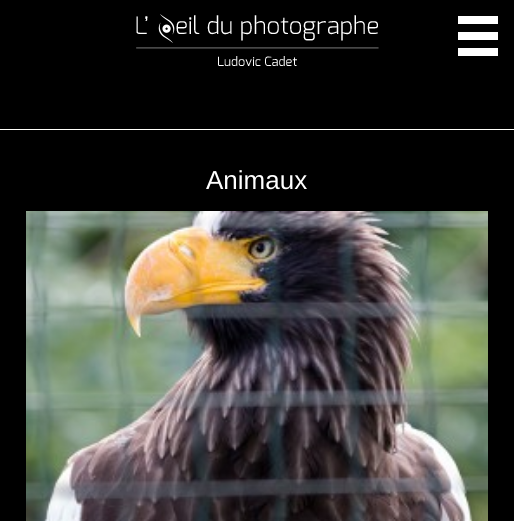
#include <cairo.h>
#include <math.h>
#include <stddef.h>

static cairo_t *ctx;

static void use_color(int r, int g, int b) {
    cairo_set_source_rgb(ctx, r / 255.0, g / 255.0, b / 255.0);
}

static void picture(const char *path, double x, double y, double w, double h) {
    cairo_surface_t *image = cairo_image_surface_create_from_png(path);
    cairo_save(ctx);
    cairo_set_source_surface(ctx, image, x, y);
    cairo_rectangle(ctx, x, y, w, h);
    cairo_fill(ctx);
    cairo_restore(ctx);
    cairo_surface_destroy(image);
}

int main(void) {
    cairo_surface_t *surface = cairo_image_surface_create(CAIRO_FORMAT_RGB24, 514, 521);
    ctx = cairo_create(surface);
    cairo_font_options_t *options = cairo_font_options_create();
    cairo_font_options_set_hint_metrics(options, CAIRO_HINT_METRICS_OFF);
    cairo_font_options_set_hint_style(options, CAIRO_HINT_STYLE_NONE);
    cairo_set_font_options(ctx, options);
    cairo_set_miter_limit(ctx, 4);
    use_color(0, 0, 0);
    cairo_paint(ctx);
    use_color(255, 255, 251);
    cairo_rectangle(ctx, 0, 129, 514, 1);
    cairo_fill(ctx);
    picture("img1.png", 136, 14, 243, 52);
    use_color(255, 255, 255);
    cairo_rectangle(ctx, 458, 48, 40, 8);
    cairo_fill(ctx);
    cairo_rectangle(ctx, 458, 32, 40, 8);
    cairo_fill(ctx);
    cairo_rectangle(ctx, 458, 16, 40, 8);
    cairo_fill(ctx);
    cairo_select_font_face(ctx, "Liberation Sans", CAIRO_FONT_SLANT_NORMAL, CAIRO_FONT_WEIGHT_NORMAL);
    cairo_set_font_size(ctx, 26);
    cairo_move_to(ctx, 206, 189);
    cairo_show_text(ctx, "Animaux");
    picture("img2.png", 26, 211, 462, 310);
    cairo_surface_write_to_png(surface, "result.png");
    cairo_font_options_destroy(options);
    cairo_destroy(ctx);
    cairo_surface_destroy(surface);
    return 0;
}
